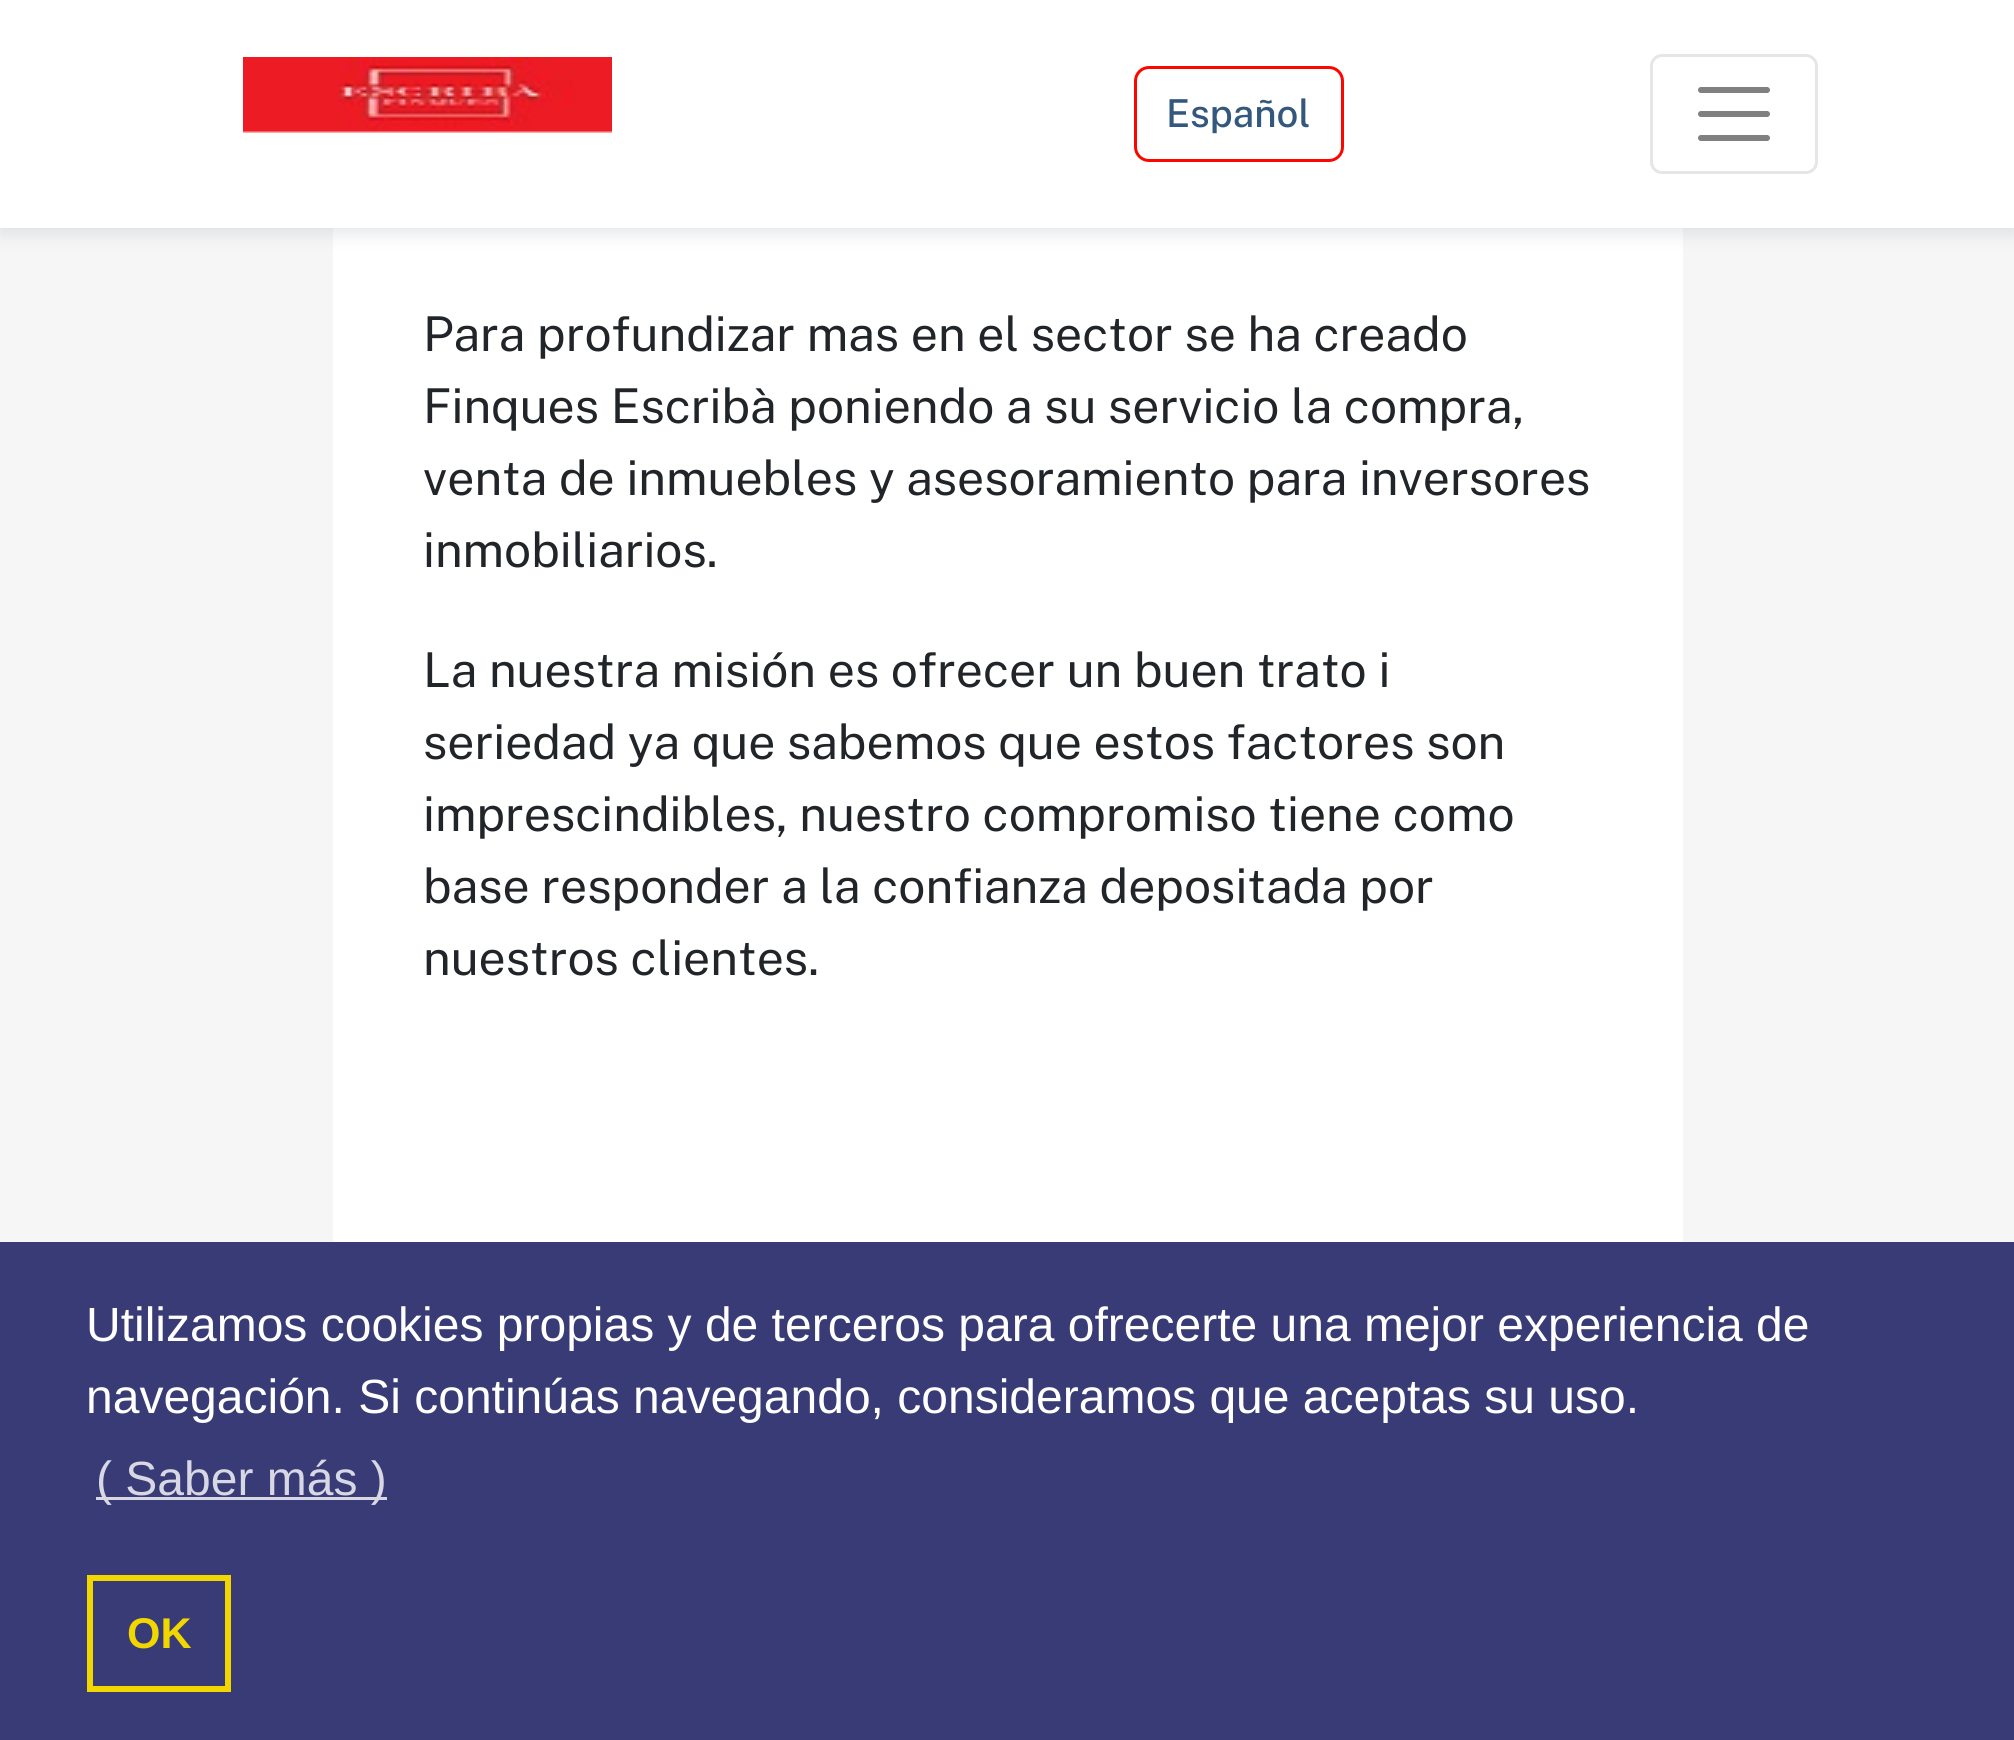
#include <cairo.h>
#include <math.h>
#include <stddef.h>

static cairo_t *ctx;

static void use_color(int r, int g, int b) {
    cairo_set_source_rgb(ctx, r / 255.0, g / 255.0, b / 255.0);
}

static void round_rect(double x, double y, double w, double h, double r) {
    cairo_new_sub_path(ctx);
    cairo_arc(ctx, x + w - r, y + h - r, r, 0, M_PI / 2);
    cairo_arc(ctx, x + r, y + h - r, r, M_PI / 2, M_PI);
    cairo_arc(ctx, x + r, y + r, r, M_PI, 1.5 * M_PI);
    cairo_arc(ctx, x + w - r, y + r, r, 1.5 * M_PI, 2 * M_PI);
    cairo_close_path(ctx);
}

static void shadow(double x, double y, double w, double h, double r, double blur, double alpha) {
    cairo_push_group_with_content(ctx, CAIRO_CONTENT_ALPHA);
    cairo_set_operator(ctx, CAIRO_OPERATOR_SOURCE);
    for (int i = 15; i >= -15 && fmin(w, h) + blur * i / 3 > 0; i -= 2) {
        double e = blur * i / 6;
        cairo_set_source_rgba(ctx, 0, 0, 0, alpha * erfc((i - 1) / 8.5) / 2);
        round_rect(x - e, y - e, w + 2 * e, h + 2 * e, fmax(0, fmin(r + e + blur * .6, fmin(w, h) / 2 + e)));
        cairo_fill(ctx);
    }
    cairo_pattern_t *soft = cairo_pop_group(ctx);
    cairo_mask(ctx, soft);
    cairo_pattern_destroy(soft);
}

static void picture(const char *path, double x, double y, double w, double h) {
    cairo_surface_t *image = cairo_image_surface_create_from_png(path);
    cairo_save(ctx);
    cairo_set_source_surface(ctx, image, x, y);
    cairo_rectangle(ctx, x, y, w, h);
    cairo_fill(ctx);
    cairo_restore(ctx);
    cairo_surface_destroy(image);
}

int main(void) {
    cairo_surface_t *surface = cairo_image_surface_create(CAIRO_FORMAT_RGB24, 2014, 1740);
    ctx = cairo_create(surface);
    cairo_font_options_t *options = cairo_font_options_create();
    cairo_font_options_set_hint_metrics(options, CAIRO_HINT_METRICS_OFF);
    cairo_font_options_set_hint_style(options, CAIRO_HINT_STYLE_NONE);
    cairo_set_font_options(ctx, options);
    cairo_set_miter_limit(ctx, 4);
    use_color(246, 246, 246);
    cairo_paint(ctx);
    use_color(255, 255, 255);
    cairo_rectangle(ctx, 333, 228, 1350, 1014);
    cairo_fill(ctx);
    use_color(161, 172, 184);
    shadow(0, 6, 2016, 228, 0, 9, 0.3);
    use_color(255, 255, 255);
    cairo_rectangle(ctx, 0, 0, 2014, 228);
    cairo_fill(ctx);
    picture("img1.png", 243, 57, 369, 76);
    round_rect(1135.5, 67.5, 207, 93, 13.5);
    use_color(253, 5, 0);
    cairo_set_line_width(ctx, 3);
    cairo_stroke(ctx);
    cairo_select_font_face(ctx, "Public Sans Medium", CAIRO_FONT_SLANT_NORMAL, CAIRO_FONT_WEIGHT_NORMAL);
    cairo_set_font_size(ctx, 38.5);
    use_color(51, 87, 125);
    cairo_move_to(ctx, 1166, 127);
    cairo_show_text(ctx, "Español");
    round_rect(1651.5, 55.5, 165, 117, 10.5);
    use_color(230, 230, 230);
    cairo_stroke(ctx);
    cairo_new_path(ctx);
    cairo_move_to(ctx, 1701, 90);
    cairo_line_to(ctx, 1767, 90);
    cairo_move_to(ctx, 1701, 114);
    cairo_line_to(ctx, 1767, 114);
    cairo_move_to(ctx, 1701, 138);
    cairo_line_to(ctx, 1767, 138);
    use_color(128, 128, 128);
    cairo_set_line_width(ctx, 6);
    cairo_set_line_cap(ctx, CAIRO_LINE_CAP_ROUND);
    cairo_stroke(ctx);
    cairo_select_font_face(ctx, "Public Sans", CAIRO_FONT_SLANT_NORMAL, CAIRO_FONT_WEIGHT_NORMAL);
    cairo_set_font_size(ctx, 48);
    use_color(33, 37, 41);
    cairo_move_to(ctx, 423, 351);
    cairo_show_text(ctx, "Para profundizar mas en el sector se ha creado");
    cairo_move_to(ctx, 423, 423);
    cairo_show_text(ctx, "Finques Escribà poniendo a su servicio la compra,");
    cairo_move_to(ctx, 423, 495);
    cairo_show_text(ctx, "venta de inmuebles y asesoramiento para inversores");
    cairo_move_to(ctx, 423, 567);
    cairo_show_text(ctx, "inmobiliarios.");
    cairo_move_to(ctx, 423, 687);
    cairo_show_text(ctx, "La nuestra misión es ofrecer un buen trato i");
    cairo_move_to(ctx, 423, 759);
    cairo_show_text(ctx, "seriedad ya que sabemos que estos factores son");
    cairo_move_to(ctx, 423, 831);
    cairo_show_text(ctx, "imprescindibles, nuestro compromiso tiene como");
    cairo_move_to(ctx, 423, 903);
    cairo_show_text(ctx, "base responder a la confianza depositada por");
    cairo_move_to(ctx, 423, 975);
    cairo_show_text(ctx, "nuestros clientes.");
    use_color(56, 59, 117);
    cairo_rectangle(ctx, 0, 1242, 2014, 498);
    cairo_fill(ctx);
    cairo_select_font_face(ctx, "Liberation Sans", CAIRO_FONT_SLANT_NORMAL, CAIRO_FONT_WEIGHT_NORMAL);
    use_color(255, 255, 255);
    cairo_move_to(ctx, 86, 1341);
    cairo_show_text(ctx, "Utilizamos cookies propias y de terceros para ofrecerte una mejor experiencia de");
    cairo_move_to(ctx, 86, 1413);
    cairo_show_text(ctx, "navegación. Si continúas navegando, consideramos que aceptas su uso.");
    use_color(215, 216, 227);
    cairo_rectangle(ctx, 96, 1497, 291, 3);
    cairo_fill(ctx);
    cairo_move_to(ctx, 96, 1495);
    cairo_show_text(ctx, "( Saber más )");
    cairo_rectangle(ctx, 90, 1578, 138, 111);
    use_color(241, 214, 0);
    cairo_set_line_cap(ctx, CAIRO_LINE_CAP_BUTT);
    cairo_stroke(ctx);
    cairo_select_font_face(ctx, "Liberation Sans", CAIRO_FONT_SLANT_NORMAL, CAIRO_FONT_WEIGHT_BOLD);
    cairo_set_font_size(ctx, 43);
    cairo_move_to(ctx, 127, 1648);
    cairo_show_text(ctx, "OK");
    cairo_surface_write_to_png(surface, "result.png");
    cairo_font_options_destroy(options);
    cairo_destroy(ctx);
    cairo_surface_destroy(surface);
    return 0;
}
